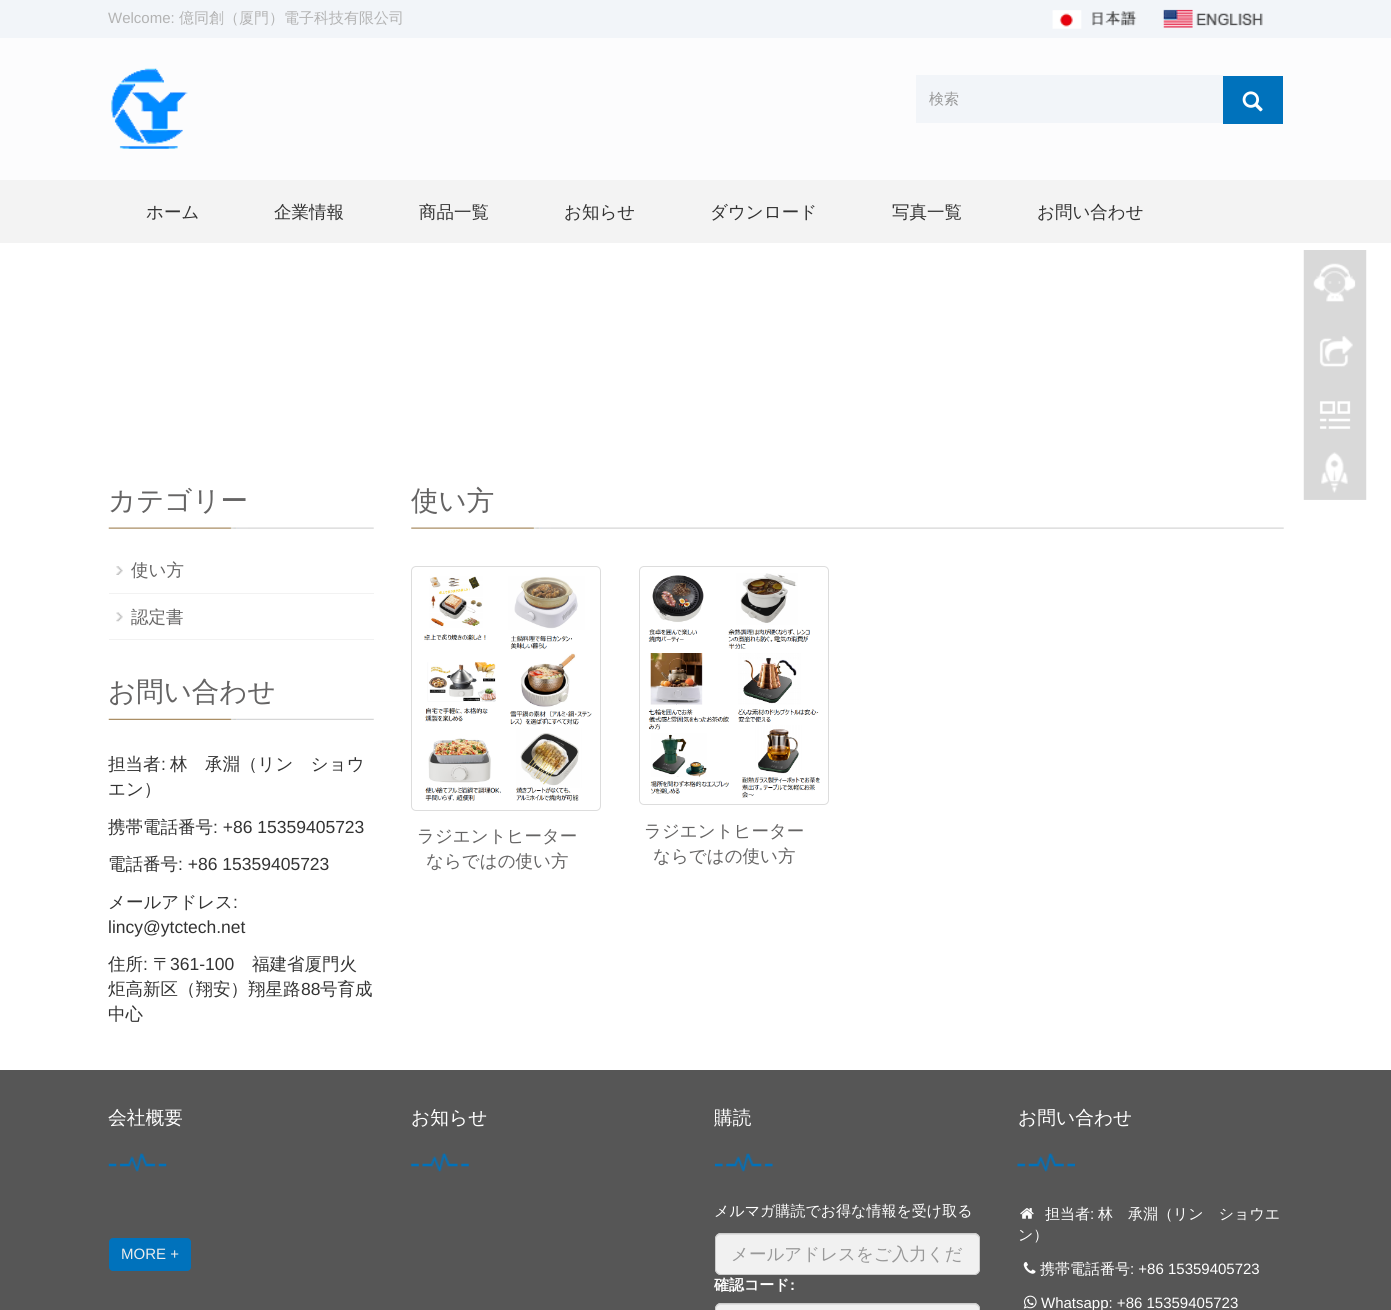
#include <cairo.h>
#include <math.h>
#include <stddef.h>

static cairo_t *ctx;

static void use_color(int r, int g, int b) {
    cairo_set_source_rgb(ctx, r / 255.0, g / 255.0, b / 255.0);
}

static void round_rect(double x, double y, double w, double h, double r) {
    cairo_new_sub_path(ctx);
    cairo_arc(ctx, x + w - r, y + h - r, r, 0, M_PI / 2);
    cairo_arc(ctx, x + r, y + h - r, r, M_PI / 2, M_PI);
    cairo_arc(ctx, x + r, y + r, r, M_PI, 1.5 * M_PI);
    cairo_arc(ctx, x + w - r, y + r, r, 1.5 * M_PI, 2 * M_PI);
    cairo_close_path(ctx);
}

static void picture(const char *path, double x, double y, double w, double h) {
    cairo_surface_t *image = cairo_image_surface_create_from_png(path);
    cairo_save(ctx);
    cairo_set_source_surface(ctx, image, x, y);
    cairo_rectangle(ctx, x, y, w, h);
    cairo_fill(ctx);
    cairo_restore(ctx);
    cairo_surface_destroy(image);
}

int main(void) {
    cairo_surface_t *surface = cairo_image_surface_create(CAIRO_FORMAT_RGB24, 1391, 1310);
    ctx = cairo_create(surface);
    cairo_font_options_t *options = cairo_font_options_create();
    cairo_font_options_set_hint_metrics(options, CAIRO_HINT_METRICS_OFF);
    cairo_font_options_set_hint_style(options, CAIRO_HINT_STYLE_NONE);
    cairo_set_font_options(ctx, options);
    cairo_set_miter_limit(ctx, 4);
    use_color(255, 255, 255);
    cairo_paint(ctx);
    use_color(252, 252, 253);
    cairo_rectangle(ctx, 0, 38, 1391, 142);
    cairo_fill(ctx);
    use_color(242, 245, 249);
    cairo_rectangle(ctx, 0, 0, 1391, 38);
    cairo_fill(ctx);
    cairo_select_font_face(ctx, "Liberation Sans", CAIRO_FONT_SLANT_NORMAL, CAIRO_FONT_WEIGHT_NORMAL);
    cairo_set_font_size(ctx, 15);
    use_color(179, 179, 179);
    cairo_move_to(ctx, 108, 23);
    cairo_show_text(ctx, "Welcome:");
    cairo_select_font_face(ctx, "WenQuanYi Zen Hei Medium", CAIRO_FONT_SLANT_NORMAL, CAIRO_FONT_WEIGHT_NORMAL);
    cairo_move_to(ctx, 179, 23);
    cairo_show_text(ctx, "億同創（厦門）電子科技有限公司");
    picture("img1.png", 1052, 10, 85, 19);
    picture("img2.png", 1163, 9, 100, 19);
    picture("img3.png", 111, 68, 77, 81);
    use_color(242, 245, 249);
    cairo_rectangle(ctx, 916, 75, 307, 48);
    cairo_fill(ctx);
    use_color(153, 153, 153);
    cairo_move_to(ctx, 929, 104);
    cairo_show_text(ctx, "検索");
    use_color(0, 114, 188);
    cairo_rectangle(ctx, 1223, 76, 60, 48);
    cairo_fill(ctx);
    picture("img4.png", 1242, 91, 21, 21);
    use_color(243, 243, 243);
    cairo_rectangle(ctx, 0, 180, 1391, 63);
    cairo_fill(ctx);
    cairo_set_font_size(ctx, 17.5);
    use_color(51, 51, 51);
    cairo_move_to(ctx, 146, 218);
    cairo_show_text(ctx, "ホーム");
    cairo_move_to(ctx, 274, 218);
    cairo_show_text(ctx, "企業情報");
    cairo_move_to(ctx, 419, 218);
    cairo_show_text(ctx, "商品一覧");
    cairo_move_to(ctx, 564, 218);
    cairo_show_text(ctx, "お知らせ");
    cairo_move_to(ctx, 710, 218);
    cairo_show_text(ctx, "ダウンロード");
    cairo_move_to(ctx, 892, 218);
    cairo_show_text(ctx, "写真一覧");
    cairo_move_to(ctx, 1037, 218);
    cairo_show_text(ctx, "お問い合わせ");
    picture("img5.png", 1303, 250, 64, 250);
    picture("img6.png", 108, 527, 266, 2);
    cairo_set_font_size(ctx, 27.5);
    use_color(101, 100, 100);
    cairo_move_to(ctx, 108, 510);
    cairo_show_text(ctx, "カテゴリー");
    picture("img7.png", 116, 566, 7, 9);
    use_color(242, 242, 242);
    cairo_rectangle(ctx, 109, 593, 265, 1);
    cairo_fill(ctx);
    cairo_set_font_size(ctx, 17.5);
    use_color(101, 100, 100);
    cairo_move_to(ctx, 131, 576);
    cairo_show_text(ctx, "使い方");
    picture("img8.png", 116, 612, 7, 10);
    use_color(242, 242, 242);
    cairo_rectangle(ctx, 109, 639, 265, 1);
    cairo_fill(ctx);
    use_color(101, 100, 100);
    cairo_move_to(ctx, 131, 623);
    cairo_show_text(ctx, "認定書");
    picture("img9.png", 108, 718, 266, 2);
    cairo_set_font_size(ctx, 27.5);
    cairo_move_to(ctx, 108, 701);
    cairo_show_text(ctx, "お問い合わせ");
    cairo_set_font_size(ctx, 17.5);
    use_color(51, 51, 51);
    cairo_move_to(ctx, 108, 770);
    cairo_show_text(ctx, "担当者");
    cairo_select_font_face(ctx, "Liberation Sans", CAIRO_FONT_SLANT_NORMAL, CAIRO_FONT_WEIGHT_NORMAL);
    cairo_move_to(ctx, 161, 770);
    cairo_show_text(ctx, ":");
    cairo_select_font_face(ctx, "WenQuanYi Zen Hei Medium", CAIRO_FONT_SLANT_NORMAL, CAIRO_FONT_WEIGHT_NORMAL);
    cairo_move_to(ctx, 170, 770);
    cairo_show_text(ctx, "林　承淵（リン　ショウ");
    cairo_move_to(ctx, 108, 795);
    cairo_show_text(ctx, "エン）");
    cairo_move_to(ctx, 108, 833);
    cairo_show_text(ctx, "携帯電話番号");
    cairo_select_font_face(ctx, "Liberation Sans", CAIRO_FONT_SLANT_NORMAL, CAIRO_FONT_WEIGHT_NORMAL);
    cairo_move_to(ctx, 213, 833);
    cairo_show_text(ctx, ": +86 15359405723");
    cairo_select_font_face(ctx, "WenQuanYi Zen Hei Medium", CAIRO_FONT_SLANT_NORMAL, CAIRO_FONT_WEIGHT_NORMAL);
    cairo_move_to(ctx, 108, 870);
    cairo_show_text(ctx, "電話番号");
    cairo_select_font_face(ctx, "Liberation Sans", CAIRO_FONT_SLANT_NORMAL, CAIRO_FONT_WEIGHT_NORMAL);
    cairo_move_to(ctx, 178, 870);
    cairo_show_text(ctx, ": +86 15359405723");
    cairo_select_font_face(ctx, "WenQuanYi Zen Hei Medium", CAIRO_FONT_SLANT_NORMAL, CAIRO_FONT_WEIGHT_NORMAL);
    cairo_move_to(ctx, 108, 908);
    cairo_show_text(ctx, "メールアドレス");
    cairo_select_font_face(ctx, "Liberation Sans", CAIRO_FONT_SLANT_NORMAL, CAIRO_FONT_WEIGHT_NORMAL);
    cairo_move_to(ctx, 233, 908);
    cairo_show_text(ctx, ":");
    cairo_move_to(ctx, 108, 933);
    cairo_show_text(ctx, "lincy@ytctech.net");
    cairo_select_font_face(ctx, "WenQuanYi Zen Hei Medium", CAIRO_FONT_SLANT_NORMAL, CAIRO_FONT_WEIGHT_NORMAL);
    cairo_move_to(ctx, 108, 970);
    cairo_show_text(ctx, "住所");
    cairo_select_font_face(ctx, "Liberation Sans", CAIRO_FONT_SLANT_NORMAL, CAIRO_FONT_WEIGHT_NORMAL);
    cairo_move_to(ctx, 143, 970);
    cairo_show_text(ctx, ":");
    cairo_select_font_face(ctx, "WenQuanYi Zen Hei Medium", CAIRO_FONT_SLANT_NORMAL, CAIRO_FONT_WEIGHT_NORMAL);
    cairo_move_to(ctx, 153, 970);
    cairo_show_text(ctx, "〒");
    cairo_select_font_face(ctx, "Liberation Sans", CAIRO_FONT_SLANT_NORMAL, CAIRO_FONT_WEIGHT_NORMAL);
    cairo_move_to(ctx, 170, 970);
    cairo_show_text(ctx, "361-100");
    cairo_select_font_face(ctx, "WenQuanYi Zen Hei Medium", CAIRO_FONT_SLANT_NORMAL, CAIRO_FONT_WEIGHT_NORMAL);
    cairo_move_to(ctx, 252, 970);
    cairo_show_text(ctx, "福建省厦門火");
    cairo_move_to(ctx, 108, 995);
    cairo_show_text(ctx, "炬高新区（翔安）翔星路");
    cairo_select_font_face(ctx, "Liberation Sans", CAIRO_FONT_SLANT_NORMAL, CAIRO_FONT_WEIGHT_NORMAL);
    cairo_move_to(ctx, 301, 995);
    cairo_show_text(ctx, "88");
    cairo_select_font_face(ctx, "WenQuanYi Zen Hei Medium", CAIRO_FONT_SLANT_NORMAL, CAIRO_FONT_WEIGHT_NORMAL);
    cairo_move_to(ctx, 320, 995);
    cairo_show_text(ctx, "号育成");
    cairo_move_to(ctx, 108, 1020);
    cairo_show_text(ctx, "中心");
    picture("img10.png", 411, 527, 873, 2);
    cairo_set_font_size(ctx, 27.5);
    use_color(101, 100, 100);
    cairo_move_to(ctx, 411, 510);
    cairo_show_text(ctx, "使い方");
    round_rect(411.5, 566.5, 189, 244, 4.5);
    use_color(221, 221, 221);
    cairo_set_line_width(ctx, 1);
    cairo_stroke(ctx);
    picture("img11.png", 424, 576, 168, 225);
    cairo_set_font_size(ctx, 17.5);
    use_color(101, 100, 100);
    cairo_move_to(ctx, 417, 842);
    cairo_show_text(ctx, "ラジエントヒーター");
    cairo_move_to(ctx, 426, 867);
    cairo_show_text(ctx, "ならではの使い方");
    round_rect(639.5, 566.5, 189, 238, 4.5);
    use_color(221, 221, 221);
    cairo_stroke(ctx);
    picture("img12.png", 648, 573, 172, 225);
    use_color(101, 100, 100);
    cairo_move_to(ctx, 644, 837);
    cairo_show_text(ctx, "ラジエントヒーター");
    cairo_move_to(ctx, 653, 862);
    cairo_show_text(ctx, "ならではの使い方");
    use_color(86, 86, 86);
    cairo_rectangle(ctx, 0, 1070, 1391, 240);
    cairo_fill(ctx);
    cairo_set_font_size(ctx, 18.75);
    use_color(255, 255, 255);
    cairo_move_to(ctx, 108, 1124);
    cairo_show_text(ctx, "会社概要");
    picture("img13.png", 108, 1153, 59, 19);
    use_color(0, 114, 188);
    round_rect(109, 1238, 82, 33, 4);
    cairo_fill(ctx);
    cairo_select_font_face(ctx, "Liberation Sans", CAIRO_FONT_SLANT_NORMAL, CAIRO_FONT_WEIGHT_NORMAL);
    cairo_set_font_size(ctx, 15);
    use_color(236, 236, 236);
    cairo_move_to(ctx, 121, 1259);
    cairo_show_text(ctx, "MORE +");
    cairo_select_font_face(ctx, "WenQuanYi Zen Hei Medium", CAIRO_FONT_SLANT_NORMAL, CAIRO_FONT_WEIGHT_NORMAL);
    cairo_set_font_size(ctx, 18.75);
    use_color(255, 255, 255);
    cairo_move_to(ctx, 411, 1124);
    cairo_show_text(ctx, "お知らせ");
    picture("img14.png", 411, 1152, 58, 20);
    cairo_move_to(ctx, 714, 1124);
    cairo_show_text(ctx, "購読");
    picture("img15.png", 715, 1153, 58, 19);
    cairo_set_font_size(ctx, 15);
    cairo_move_to(ctx, 714, 1216);
    cairo_show_text(ctx, "メルマガ購読でお得な情報を受け取る");
    use_color(241, 241, 241);
    round_rect(715, 1233, 265, 42, 6);
    cairo_fill(ctx);
    use_color(223, 223, 223);
    cairo_new_path(ctx);
    cairo_move_to(ctx, 721, 1235);
    cairo_line_to(ctx, 974, 1235);
    cairo_curve_to(ctx, 977, 1235, 979, 1237, 979, 1240);
    cairo_curve_to(ctx, 979, 1237, 977, 1234, 974, 1234);
    cairo_line_to(ctx, 721, 1234);
    cairo_curve_to(ctx, 718, 1234, 716, 1237, 716, 1240);
    cairo_curve_to(ctx, 716, 1237, 718, 1235, 721, 1235);
    cairo_close_path(ctx);
    cairo_fill(ctx);
    round_rect(715.5, 1233.5, 264, 41, 5.5);
    use_color(204, 204, 204);
    cairo_stroke(ctx);
    cairo_set_font_size(ctx, 17.5);
    use_color(153, 153, 153);
    cairo_move_to(ctx, 731, 1260);
    cairo_show_text(ctx, "メールアドレスをご入力くだ");
    cairo_select_font_face(ctx, "WenQuanYi Zen Hei", CAIRO_FONT_SLANT_NORMAL, CAIRO_FONT_WEIGHT_BOLD);
    cairo_set_font_size(ctx, 15);
    use_color(255, 255, 255);
    cairo_move_to(ctx, 714, 1290);
    cairo_show_text(ctx, "確認コード");
    cairo_select_font_face(ctx, "Liberation Sans", CAIRO_FONT_SLANT_NORMAL, CAIRO_FONT_WEIGHT_BOLD);
    cairo_move_to(ctx, 790, 1290);
    cairo_show_text(ctx, ":");
    use_color(241, 241, 241);
    round_rect(715, 1303, 265, 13, 6);
    cairo_fill(ctx);
    use_color(223, 223, 223);
    cairo_new_path(ctx);
    cairo_move_to(ctx, 721, 1305);
    cairo_line_to(ctx, 974, 1305);
    cairo_curve_to(ctx, 977, 1305, 979, 1307, 979, 1310);
    cairo_curve_to(ctx, 979, 1307, 977, 1304, 974, 1304);
    cairo_line_to(ctx, 721, 1304);
    cairo_curve_to(ctx, 718, 1304, 716, 1307, 716, 1310);
    cairo_curve_to(ctx, 716, 1307, 718, 1305, 721, 1305);
    cairo_close_path(ctx);
    cairo_fill(ctx);
    round_rect(715.5, 1303.5, 264, 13, 5.5);
    use_color(204, 204, 204);
    cairo_stroke(ctx);
    cairo_select_font_face(ctx, "WenQuanYi Zen Hei Medium", CAIRO_FONT_SLANT_NORMAL, CAIRO_FONT_WEIGHT_NORMAL);
    cairo_set_font_size(ctx, 18.75);
    use_color(255, 255, 255);
    cairo_move_to(ctx, 1018, 1124);
    cairo_show_text(ctx, "お問い合わせ");
    picture("img16.png", 1017, 1153, 58, 19);
    picture("img17.png", 1020, 1208, 14, 11);
    cairo_set_font_size(ctx, 15);
    cairo_move_to(ctx, 1045, 1219);
    cairo_show_text(ctx, "担当者");
    cairo_select_font_face(ctx, "Liberation Sans", CAIRO_FONT_SLANT_NORMAL, CAIRO_FONT_WEIGHT_NORMAL);
    cairo_move_to(ctx, 1090, 1219);
    cairo_show_text(ctx, ":");
    cairo_select_font_face(ctx, "WenQuanYi Zen Hei Medium", CAIRO_FONT_SLANT_NORMAL, CAIRO_FONT_WEIGHT_NORMAL);
    cairo_move_to(ctx, 1098, 1219);
    cairo_show_text(ctx, "林　承淵（リン　ショウエ");
    cairo_move_to(ctx, 1018, 1240);
    cairo_show_text(ctx, "ン）");
    picture("img18.png", 1023, 1262, 13, 12);
    cairo_move_to(ctx, 1040, 1274);
    cairo_show_text(ctx, "携帯電話番号");
    cairo_select_font_face(ctx, "Liberation Sans", CAIRO_FONT_SLANT_NORMAL, CAIRO_FONT_WEIGHT_NORMAL);
    cairo_move_to(ctx, 1130, 1274);
    cairo_show_text(ctx, ": +86 15359405723");
    picture("img19.png", 1023, 1295, 14, 14);
    cairo_move_to(ctx, 1041, 1308);
    cairo_show_text(ctx, "Whatsapp: +86 15359405723");
    cairo_surface_write_to_png(surface, "result.png");
    cairo_font_options_destroy(options);
    cairo_destroy(ctx);
    cairo_surface_destroy(surface);
    return 0;
}
